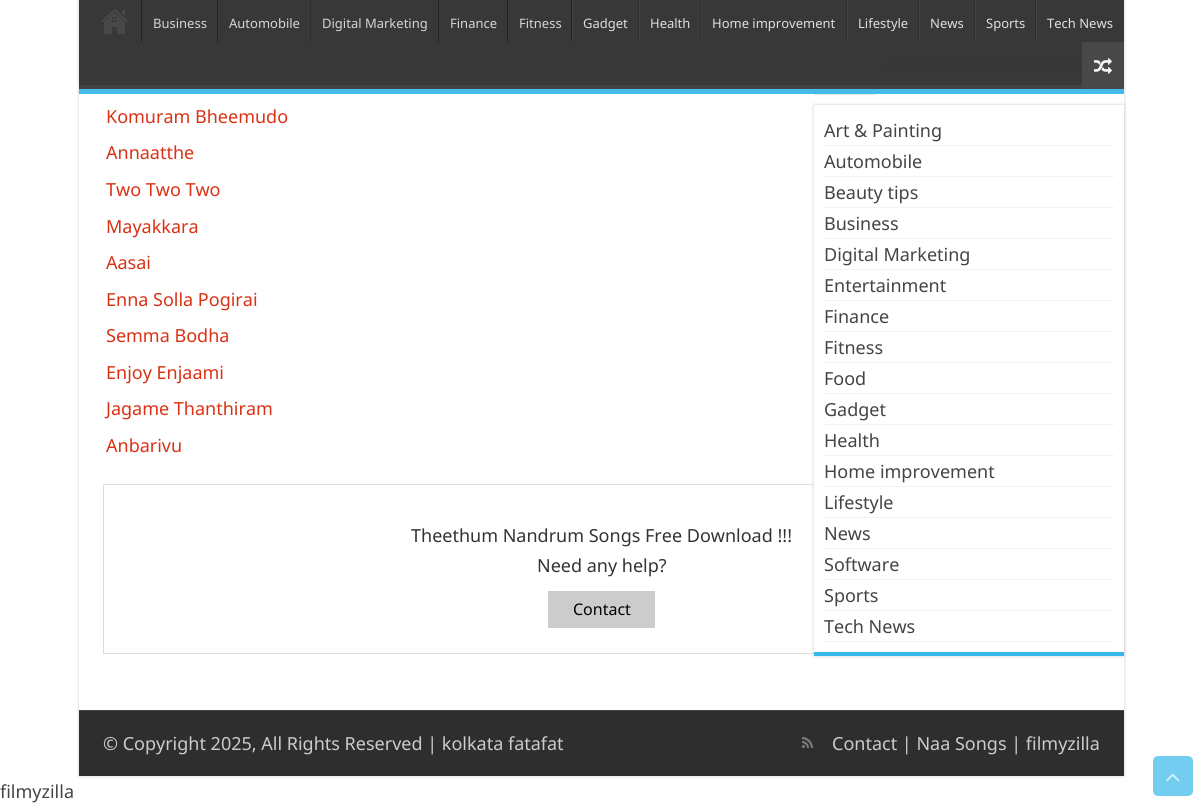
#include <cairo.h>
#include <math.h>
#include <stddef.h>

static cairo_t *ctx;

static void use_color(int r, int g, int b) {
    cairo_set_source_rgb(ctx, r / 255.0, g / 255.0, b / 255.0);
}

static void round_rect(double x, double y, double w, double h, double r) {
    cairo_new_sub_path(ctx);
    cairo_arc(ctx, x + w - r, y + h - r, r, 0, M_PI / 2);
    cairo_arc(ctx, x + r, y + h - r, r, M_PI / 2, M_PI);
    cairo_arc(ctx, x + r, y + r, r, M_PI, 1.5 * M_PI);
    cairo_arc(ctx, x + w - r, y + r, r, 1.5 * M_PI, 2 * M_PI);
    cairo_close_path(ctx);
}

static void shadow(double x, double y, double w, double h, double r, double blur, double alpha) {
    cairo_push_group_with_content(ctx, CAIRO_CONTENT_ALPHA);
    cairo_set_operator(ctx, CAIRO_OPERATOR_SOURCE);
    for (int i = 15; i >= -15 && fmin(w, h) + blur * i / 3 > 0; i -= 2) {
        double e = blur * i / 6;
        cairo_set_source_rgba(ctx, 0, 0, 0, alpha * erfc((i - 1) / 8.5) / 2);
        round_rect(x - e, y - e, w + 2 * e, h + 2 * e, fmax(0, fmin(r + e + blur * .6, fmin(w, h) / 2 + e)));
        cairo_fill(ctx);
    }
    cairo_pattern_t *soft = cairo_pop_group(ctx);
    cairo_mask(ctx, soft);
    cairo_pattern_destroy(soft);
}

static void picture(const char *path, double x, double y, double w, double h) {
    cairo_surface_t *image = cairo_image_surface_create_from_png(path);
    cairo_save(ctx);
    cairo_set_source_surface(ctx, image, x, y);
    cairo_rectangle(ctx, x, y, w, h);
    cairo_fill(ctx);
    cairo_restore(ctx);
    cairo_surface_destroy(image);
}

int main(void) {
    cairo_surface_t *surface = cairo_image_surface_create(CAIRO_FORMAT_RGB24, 1203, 806);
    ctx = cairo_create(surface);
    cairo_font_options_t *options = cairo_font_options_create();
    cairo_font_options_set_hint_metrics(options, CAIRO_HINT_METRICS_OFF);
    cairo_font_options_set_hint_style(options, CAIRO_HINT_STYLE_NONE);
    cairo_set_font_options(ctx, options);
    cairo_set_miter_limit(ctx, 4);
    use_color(255, 255, 255);
    cairo_paint(ctx);
    use_color(56, 56, 56);
    cairo_rectangle(ctx, 79, 0, 1045, 85);
    cairo_fill(ctx);
    cairo_save(ctx);
    cairo_set_fill_rule(ctx, CAIRO_FILL_RULE_EVEN_ODD);
    cairo_new_path(ctx);
    cairo_move_to(ctx, 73, 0);
    cairo_line_to(ctx, 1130, 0);
    cairo_line_to(ctx, 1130, 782);
    cairo_line_to(ctx, 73, 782);
    cairo_close_path(ctx);
    cairo_move_to(ctx, 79, -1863);
    cairo_line_to(ctx, 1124, -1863);
    cairo_line_to(ctx, 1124, 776);
    cairo_line_to(ctx, 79, 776);
    cairo_close_path(ctx);
    cairo_clip(ctx);
    use_color(202, 202, 202);
    shadow(79, -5, 1045, 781, 0, 1.5, 1);
    cairo_restore(ctx);
    cairo_save(ctx);
    cairo_rectangle(ctx, 79, 0, 1045, 89);
    cairo_clip(ctx);
    use_color(67, 67, 67);
    cairo_set_fill_rule(ctx, CAIRO_FILL_RULE_EVEN_ODD);
    cairo_new_path(ctx);
    cairo_move_to(ctx, -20, -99);
    cairo_line_to(ctx, 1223, -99);
    cairo_line_to(ctx, 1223, 188);
    cairo_line_to(ctx, -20, 188);
    cairo_close_path(ctx);
    cairo_move_to(ctx, 78, -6);
    cairo_line_to(ctx, 1123, -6);
    cairo_curve_to(ctx, 1124, -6, 1124, -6, 1124, -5);
    cairo_line_to(ctx, 1124, 84);
    cairo_curve_to(ctx, 1124, 85, 1124, 85, 1123, 85);
    cairo_line_to(ctx, 78, 85);
    cairo_curve_to(ctx, 77, 85, 77, 85, 77, 84);
    cairo_line_to(ctx, 77, -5);
    cairo_curve_to(ctx, 77, -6, 77, -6, 78, -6);
    cairo_close_path(ctx);
    cairo_fill(ctx);
    cairo_restore(ctx);
    use_color(65, 188, 236);
    cairo_rectangle(ctx, 79, 89, 1045, 5);
    cairo_fill(ctx);
    picture("img1.png", 100, 9, 29, 25);
    cairo_set_source_rgba(ctx, 0.133, 0.133, 0.133, 0.95);
    cairo_rectangle(ctx, 141, 0, 1, 42);
    cairo_fill(ctx);
    cairo_select_font_face(ctx, "Noto Sans", CAIRO_FONT_SLANT_NORMAL, CAIRO_FONT_WEIGHT_NORMAL);
    cairo_set_font_size(ctx, 13);
    use_color(213, 213, 213);
    cairo_move_to(ctx, 153, 28);
    cairo_show_text(ctx, "Business");
    cairo_set_source_rgba(ctx, 0.133, 0.133, 0.133, 0.95);
    cairo_rectangle(ctx, 217, 0, 1, 42);
    cairo_fill(ctx);
    use_color(213, 213, 213);
    cairo_move_to(ctx, 229, 28);
    cairo_show_text(ctx, "Automobile");
    use_color(45, 45, 45);
    cairo_rectangle(ctx, 310, 0, 1, 42);
    cairo_fill(ctx);
    use_color(213, 213, 213);
    cairo_move_to(ctx, 322, 28);
    cairo_show_text(ctx, "Digital Marketing");
    cairo_set_source_rgba(ctx, 0.133, 0.133, 0.133, 0.95);
    cairo_rectangle(ctx, 438, 0, 1, 42);
    cairo_fill(ctx);
    use_color(213, 213, 213);
    cairo_move_to(ctx, 450, 28);
    cairo_show_text(ctx, "Finance");
    cairo_set_source_rgba(ctx, 0.133, 0.133, 0.133, 0.95);
    cairo_rectangle(ctx, 507, 0, 1, 42);
    cairo_fill(ctx);
    use_color(213, 213, 213);
    cairo_move_to(ctx, 519, 28);
    cairo_show_text(ctx, "Fitness");
    use_color(35, 35, 35);
    cairo_rectangle(ctx, 571, 0, 1, 42);
    cairo_fill(ctx);
    use_color(66, 66, 66);
    cairo_rectangle(ctx, 572, 0, 1, 42);
    cairo_fill(ctx);
    use_color(223, 223, 223);
    cairo_move_to(ctx, 583, 28);
    cairo_show_text(ctx, "Gadget");
    use_color(45, 45, 45);
    cairo_rectangle(ctx, 638, 0, 1, 42);
    cairo_fill(ctx);
    use_color(66, 66, 66);
    cairo_rectangle(ctx, 639, 0, 1, 42);
    cairo_fill(ctx);
    use_color(223, 223, 223);
    cairo_move_to(ctx, 650, 28);
    cairo_show_text(ctx, "Health");
    use_color(45, 45, 45);
    cairo_rectangle(ctx, 700, 0, 1, 42);
    cairo_fill(ctx);
    use_color(66, 66, 66);
    cairo_rectangle(ctx, 701, 0, 1, 42);
    cairo_fill(ctx);
    use_color(223, 223, 223);
    cairo_move_to(ctx, 712, 28);
    cairo_show_text(ctx, "Home improvement");
    use_color(45, 45, 45);
    cairo_rectangle(ctx, 846, 0, 1, 42);
    cairo_fill(ctx);
    use_color(66, 66, 66);
    cairo_rectangle(ctx, 847, 0, 1, 42);
    cairo_fill(ctx);
    use_color(223, 223, 223);
    cairo_move_to(ctx, 858, 28);
    cairo_show_text(ctx, "Lifestyle");
    use_color(45, 45, 45);
    cairo_rectangle(ctx, 918, 0, 1, 42);
    cairo_fill(ctx);
    use_color(66, 66, 66);
    cairo_rectangle(ctx, 919, 0, 1, 42);
    cairo_fill(ctx);
    use_color(223, 223, 223);
    cairo_move_to(ctx, 930, 28);
    cairo_show_text(ctx, "News");
    use_color(45, 45, 45);
    cairo_rectangle(ctx, 974, 0, 1, 42);
    cairo_fill(ctx);
    use_color(66, 66, 66);
    cairo_rectangle(ctx, 975, 0, 1, 42);
    cairo_fill(ctx);
    use_color(223, 223, 223);
    cairo_move_to(ctx, 986, 28);
    cairo_show_text(ctx, "Sports");
    use_color(45, 45, 45);
    cairo_rectangle(ctx, 1035, 0, 1, 42);
    cairo_fill(ctx);
    use_color(66, 66, 66);
    cairo_rectangle(ctx, 1036, 0, 1, 42);
    cairo_fill(ctx);
    use_color(223, 223, 223);
    cairo_move_to(ctx, 1047, 28);
    cairo_show_text(ctx, "Tech News");
    picture("img3.png", 886, 60, 238, 12);
    cairo_set_source_rgba(ctx, 0.286, 0.286, 0.286, 0.95);
    cairo_rectangle(ctx, 1082, 42, 42, 47);
    cairo_fill(ctx);
    picture("img2.png", 1094, 57, 18, 17);
    cairo_set_font_size(ctx, 18);
    use_color(218, 49, 20);
    cairo_move_to(ctx, 106, 123);
    cairo_show_text(ctx, "Komuram Bheemudo");
    cairo_move_to(ctx, 106, 159);
    cairo_show_text(ctx, "Annaatthe");
    cairo_move_to(ctx, 106, 196);
    cairo_show_text(ctx, "Two Two Two");
    cairo_move_to(ctx, 106, 233);
    cairo_show_text(ctx, "Mayakkara");
    cairo_move_to(ctx, 106, 269);
    cairo_show_text(ctx, "Aasai");
    cairo_move_to(ctx, 106, 306);
    cairo_show_text(ctx, "Enna Solla Pogirai");
    cairo_move_to(ctx, 106, 342);
    cairo_show_text(ctx, "Semma Bodha");
    cairo_move_to(ctx, 106, 379);
    cairo_show_text(ctx, "Enjoy Enjaami");
    cairo_move_to(ctx, 106, 415);
    cairo_show_text(ctx, "Jagame Thanthiram");
    cairo_move_to(ctx, 106, 452);
    cairo_show_text(ctx, "Anbarivu");
    cairo_rectangle(ctx, 103.5, 484.5, 996, 169);
    use_color(221, 221, 221);
    cairo_set_line_width(ctx, 1);
    cairo_stroke(ctx);
    use_color(51, 51, 51);
    cairo_move_to(ctx, 411, 542);
    cairo_show_text(ctx, "Theethum Nandrum Songs Free Download !!!");
    cairo_move_to(ctx, 537, 572);
    cairo_show_text(ctx, "Need any help?");
    use_color(204, 204, 204);
    cairo_rectangle(ctx, 548, 591, 107, 37);
    cairo_fill(ctx);
    cairo_set_font_size(ctx, 16);
    use_color(0, 0, 0);
    cairo_move_to(ctx, 573, 615);
    cairo_show_text(ctx, "Contact");
    use_color(230, 230, 230);
    cairo_rectangle(ctx, 814, 94, 62, 1);
    cairo_fill(ctx);
    use_color(202, 202, 202);
    shadow(814, 105, 310, 551, 0, 1.5, 1);
    use_color(255, 255, 255);
    cairo_rectangle(ctx, 814, 105, 310, 547);
    cairo_fill(ctx);
    use_color(55, 184, 235);
    cairo_rectangle(ctx, 814, 652, 310, 4);
    cairo_fill(ctx);
    use_color(242, 242, 242);
    cairo_rectangle(ctx, 824, 145, 290, 1);
    cairo_fill(ctx);
    cairo_set_font_size(ctx, 18);
    use_color(68, 68, 68);
    cairo_move_to(ctx, 824, 137);
    cairo_show_text(ctx, "Art & Painting");
    use_color(242, 242, 242);
    cairo_rectangle(ctx, 824, 176, 290, 1);
    cairo_fill(ctx);
    use_color(68, 68, 68);
    cairo_move_to(ctx, 824, 168);
    cairo_show_text(ctx, "Automobile");
    use_color(242, 242, 242);
    cairo_rectangle(ctx, 824, 207, 290, 1);
    cairo_fill(ctx);
    use_color(68, 68, 68);
    cairo_move_to(ctx, 824, 199);
    cairo_show_text(ctx, "Beauty tips");
    use_color(242, 242, 242);
    cairo_rectangle(ctx, 824, 238, 290, 1);
    cairo_fill(ctx);
    use_color(68, 68, 68);
    cairo_move_to(ctx, 824, 230);
    cairo_show_text(ctx, "Business");
    use_color(242, 242, 242);
    cairo_rectangle(ctx, 824, 269, 290, 1);
    cairo_fill(ctx);
    use_color(68, 68, 68);
    cairo_move_to(ctx, 824, 261);
    cairo_show_text(ctx, "Digital Marketing");
    use_color(242, 242, 242);
    cairo_rectangle(ctx, 824, 300, 290, 1);
    cairo_fill(ctx);
    use_color(68, 68, 68);
    cairo_move_to(ctx, 824, 292);
    cairo_show_text(ctx, "Entertainment");
    use_color(242, 242, 242);
    cairo_rectangle(ctx, 824, 331, 290, 1);
    cairo_fill(ctx);
    use_color(68, 68, 68);
    cairo_move_to(ctx, 824, 323);
    cairo_show_text(ctx, "Finance");
    use_color(242, 242, 242);
    cairo_rectangle(ctx, 824, 362, 290, 1);
    cairo_fill(ctx);
    use_color(68, 68, 68);
    cairo_move_to(ctx, 824, 354);
    cairo_show_text(ctx, "Fitness");
    use_color(242, 242, 242);
    cairo_rectangle(ctx, 824, 393, 290, 1);
    cairo_fill(ctx);
    use_color(68, 68, 68);
    cairo_move_to(ctx, 824, 385);
    cairo_show_text(ctx, "Food");
    use_color(242, 242, 242);
    cairo_rectangle(ctx, 824, 424, 290, 1);
    cairo_fill(ctx);
    use_color(68, 68, 68);
    cairo_move_to(ctx, 824, 416);
    cairo_show_text(ctx, "Gadget");
    use_color(242, 242, 242);
    cairo_rectangle(ctx, 824, 455, 290, 1);
    cairo_fill(ctx);
    use_color(68, 68, 68);
    cairo_move_to(ctx, 824, 447);
    cairo_show_text(ctx, "Health");
    use_color(242, 242, 242);
    cairo_rectangle(ctx, 824, 486, 290, 1);
    cairo_fill(ctx);
    use_color(68, 68, 68);
    cairo_move_to(ctx, 824, 478);
    cairo_show_text(ctx, "Home improvement");
    use_color(242, 242, 242);
    cairo_rectangle(ctx, 824, 517, 290, 1);
    cairo_fill(ctx);
    use_color(68, 68, 68);
    cairo_move_to(ctx, 824, 509);
    cairo_show_text(ctx, "Lifestyle");
    use_color(242, 242, 242);
    cairo_rectangle(ctx, 824, 548, 290, 1);
    cairo_fill(ctx);
    use_color(68, 68, 68);
    cairo_move_to(ctx, 824, 540);
    cairo_show_text(ctx, "News");
    use_color(242, 242, 242);
    cairo_rectangle(ctx, 824, 579, 290, 1);
    cairo_fill(ctx);
    use_color(68, 68, 68);
    cairo_move_to(ctx, 824, 571);
    cairo_show_text(ctx, "Software");
    use_color(242, 242, 242);
    cairo_rectangle(ctx, 824, 610, 290, 1);
    cairo_fill(ctx);
    use_color(68, 68, 68);
    cairo_move_to(ctx, 824, 602);
    cairo_show_text(ctx, "Sports");
    use_color(242, 242, 242);
    cairo_rectangle(ctx, 824, 641, 290, 1);
    cairo_fill(ctx);
    use_color(68, 68, 68);
    cairo_move_to(ctx, 824, 633);
    cairo_show_text(ctx, "Tech News");
    use_color(46, 46, 46);
    cairo_rectangle(ctx, 79, 711, 1045, 65);
    cairo_fill(ctx);
    use_color(68, 68, 68);
    cairo_rectangle(ctx, 79, 710, 1045, 1);
    cairo_fill(ctx);
    use_color(204, 204, 204);
    cairo_move_to(ctx, 103, 750);
    cairo_show_text(ctx, "© Copyright 2025, All Rights Reserved | kolkata fatafat");
    picture("img4.png", 802, 737, 11, 11);
    cairo_move_to(ctx, 832, 750);
    cairo_show_text(ctx, "Contact | Naa Songs | filmyzilla");
    use_color(68, 68, 68);
    cairo_move_to(ctx, 0, 798);
    cairo_show_text(ctx, "filmyzilla");
    use_color(115, 205, 241);
    round_rect(1153, 756, 40, 40, 5);
    cairo_fill(ctx);
    picture("img5.png", 1166, 773, 14, 9);
    cairo_surface_write_to_png(surface, "result.png");
    cairo_font_options_destroy(options);
    cairo_destroy(ctx);
    cairo_surface_destroy(surface);
    return 0;
}
